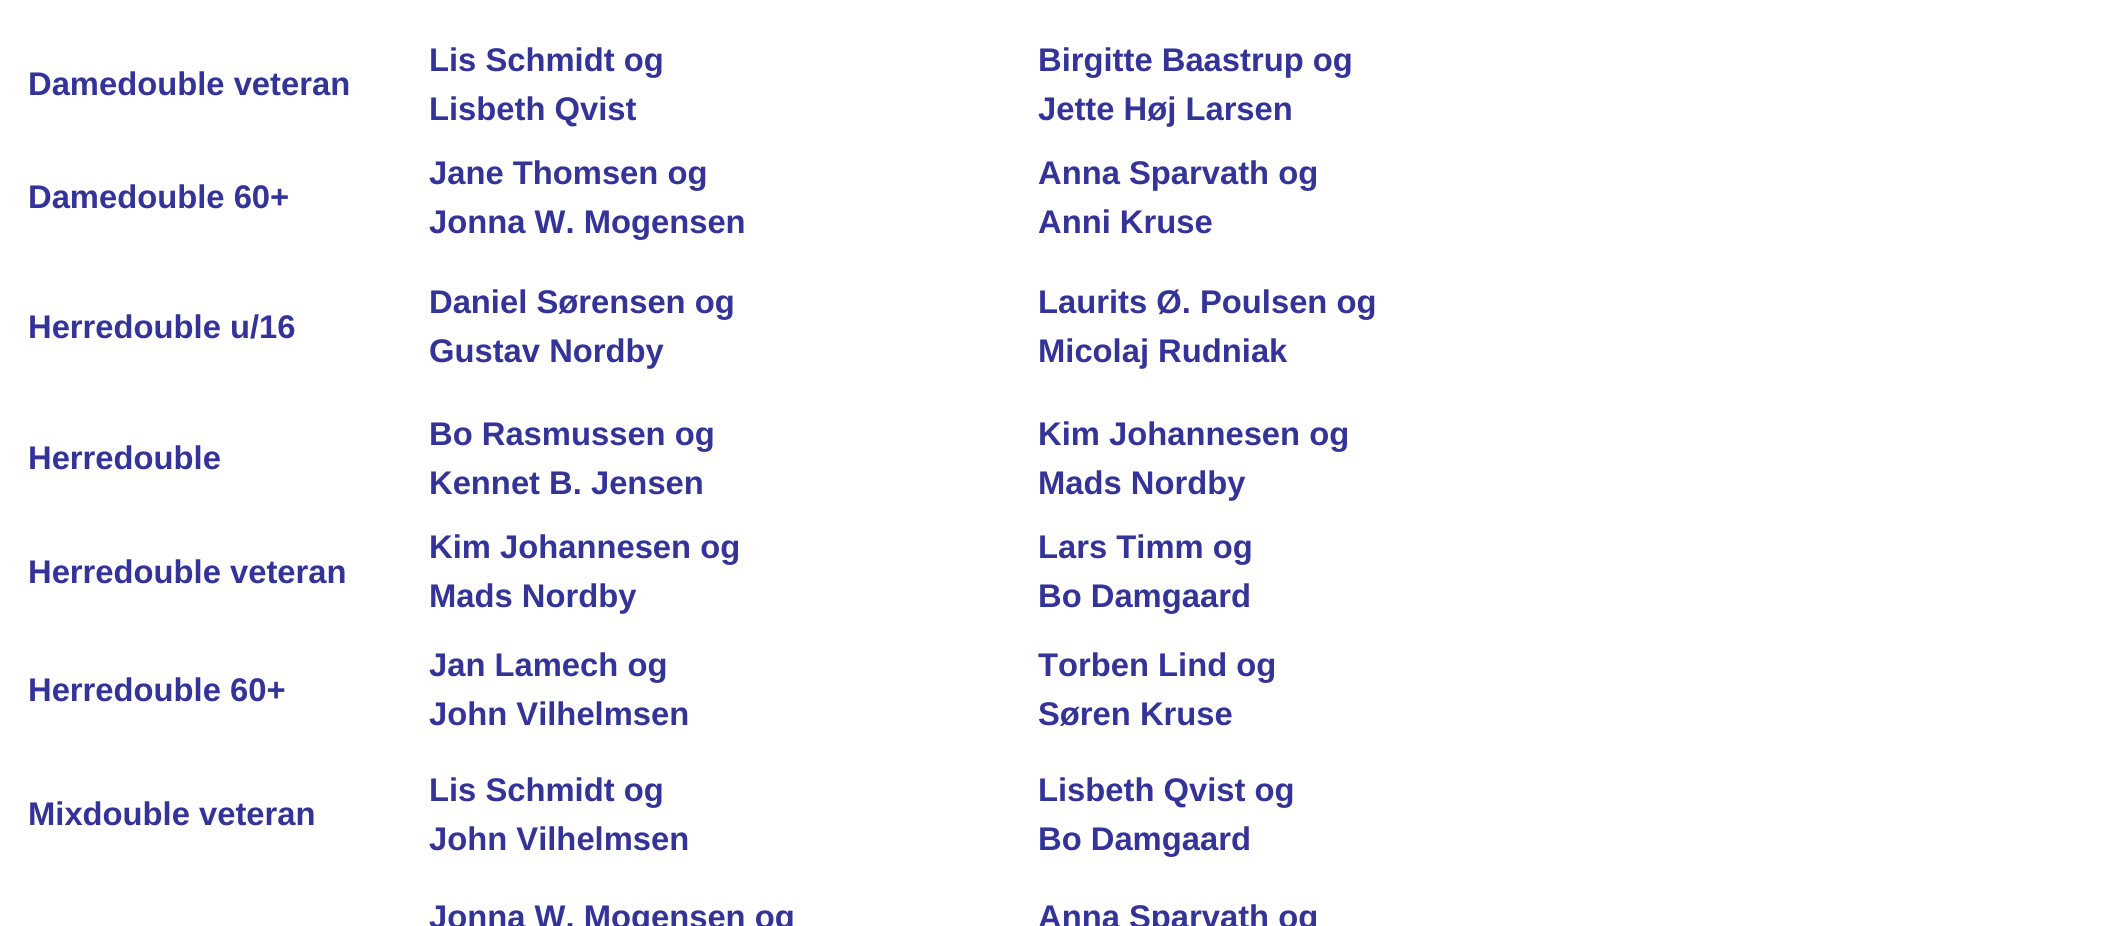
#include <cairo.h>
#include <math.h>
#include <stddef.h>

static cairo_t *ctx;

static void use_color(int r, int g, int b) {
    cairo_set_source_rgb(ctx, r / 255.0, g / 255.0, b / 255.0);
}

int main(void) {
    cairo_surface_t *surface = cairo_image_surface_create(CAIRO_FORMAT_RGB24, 2105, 926);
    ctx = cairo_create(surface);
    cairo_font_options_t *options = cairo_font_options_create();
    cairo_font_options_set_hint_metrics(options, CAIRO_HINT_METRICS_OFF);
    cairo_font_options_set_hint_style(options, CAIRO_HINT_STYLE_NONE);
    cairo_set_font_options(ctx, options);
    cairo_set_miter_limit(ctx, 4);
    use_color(255, 255, 255);
    cairo_paint(ctx);
    cairo_select_font_face(ctx, "Liberation Sans", CAIRO_FONT_SLANT_NORMAL, CAIRO_FONT_WEIGHT_BOLD);
    cairo_set_font_size(ctx, 32.75);
    use_color(51, 51, 153);
    cairo_move_to(ctx, 28, 95);
    cairo_show_text(ctx, "Damedouble veteran");
    cairo_move_to(ctx, 429, 71);
    cairo_show_text(ctx, "Lis Schmidt og");
    cairo_move_to(ctx, 429, 120);
    cairo_show_text(ctx, "Lisbeth Qvist");
    cairo_move_to(ctx, 1038, 71);
    cairo_show_text(ctx, "Birgitte Baastrup og");
    cairo_move_to(ctx, 1038, 120);
    cairo_show_text(ctx, "Jette Høj Larsen");
    cairo_move_to(ctx, 28, 208);
    cairo_show_text(ctx, "Damedouble 60+");
    cairo_move_to(ctx, 429, 184);
    cairo_show_text(ctx, "Jane Thomsen og");
    cairo_move_to(ctx, 429, 233);
    cairo_show_text(ctx, "Jonna W. Mogensen");
    cairo_move_to(ctx, 1038, 184);
    cairo_show_text(ctx, "Anna Sparvath og");
    cairo_move_to(ctx, 1038, 233);
    cairo_show_text(ctx, "Anni Kruse");
    cairo_move_to(ctx, 28, 338);
    cairo_show_text(ctx, "Herredouble u/16");
    cairo_move_to(ctx, 429, 313);
    cairo_show_text(ctx, "Daniel Sørensen og");
    cairo_move_to(ctx, 429, 362);
    cairo_show_text(ctx, "Gustav Nordby");
    cairo_move_to(ctx, 1038, 313);
    cairo_show_text(ctx, "Laurits Ø. Poulsen og");
    cairo_move_to(ctx, 1038, 362);
    cairo_show_text(ctx, "Micolaj Rudniak");
    cairo_move_to(ctx, 28, 469);
    cairo_show_text(ctx, "Herredouble");
    cairo_move_to(ctx, 429, 445);
    cairo_show_text(ctx, "Bo Rasmussen og");
    cairo_move_to(ctx, 429, 494);
    cairo_show_text(ctx, "Kennet B. Jensen");
    cairo_move_to(ctx, 1038, 445);
    cairo_show_text(ctx, "Kim Johannesen og");
    cairo_move_to(ctx, 1038, 494);
    cairo_show_text(ctx, "Mads Nordby");
    cairo_move_to(ctx, 28, 583);
    cairo_show_text(ctx, "Herredouble veteran");
    cairo_move_to(ctx, 429, 558);
    cairo_show_text(ctx, "Kim Johannesen og");
    cairo_move_to(ctx, 429, 607);
    cairo_show_text(ctx, "Mads Nordby");
    cairo_move_to(ctx, 1038, 558);
    cairo_show_text(ctx, "Lars Timm og");
    cairo_move_to(ctx, 1038, 607);
    cairo_show_text(ctx, "Bo Damgaard");
    cairo_move_to(ctx, 28, 701);
    cairo_show_text(ctx, "Herredouble 60+");
    cairo_move_to(ctx, 429, 676);
    cairo_show_text(ctx, "Jan Lamech og");
    cairo_move_to(ctx, 429, 725);
    cairo_show_text(ctx, "John Vilhelmsen");
    cairo_move_to(ctx, 1038, 676);
    cairo_show_text(ctx, "Torben Lind og");
    cairo_move_to(ctx, 1038, 725);
    cairo_show_text(ctx, "Søren Kruse");
    cairo_move_to(ctx, 28, 825);
    cairo_show_text(ctx, "Mixdouble veteran");
    cairo_move_to(ctx, 429, 801);
    cairo_show_text(ctx, "Lis Schmidt og");
    cairo_move_to(ctx, 429, 850);
    cairo_show_text(ctx, "John Vilhelmsen");
    cairo_move_to(ctx, 1038, 801);
    cairo_show_text(ctx, "Lisbeth Qvist og");
    cairo_move_to(ctx, 1038, 850);
    cairo_show_text(ctx, "Bo Damgaard");
    cairo_move_to(ctx, 429, 928);
    cairo_show_text(ctx, "Jonna W. Mogensen og");
    cairo_move_to(ctx, 1038, 928);
    cairo_show_text(ctx, "Anna Sparvath og");
    cairo_surface_write_to_png(surface, "result.png");
    cairo_font_options_destroy(options);
    cairo_destroy(ctx);
    cairo_surface_destroy(surface);
    return 0;
}
